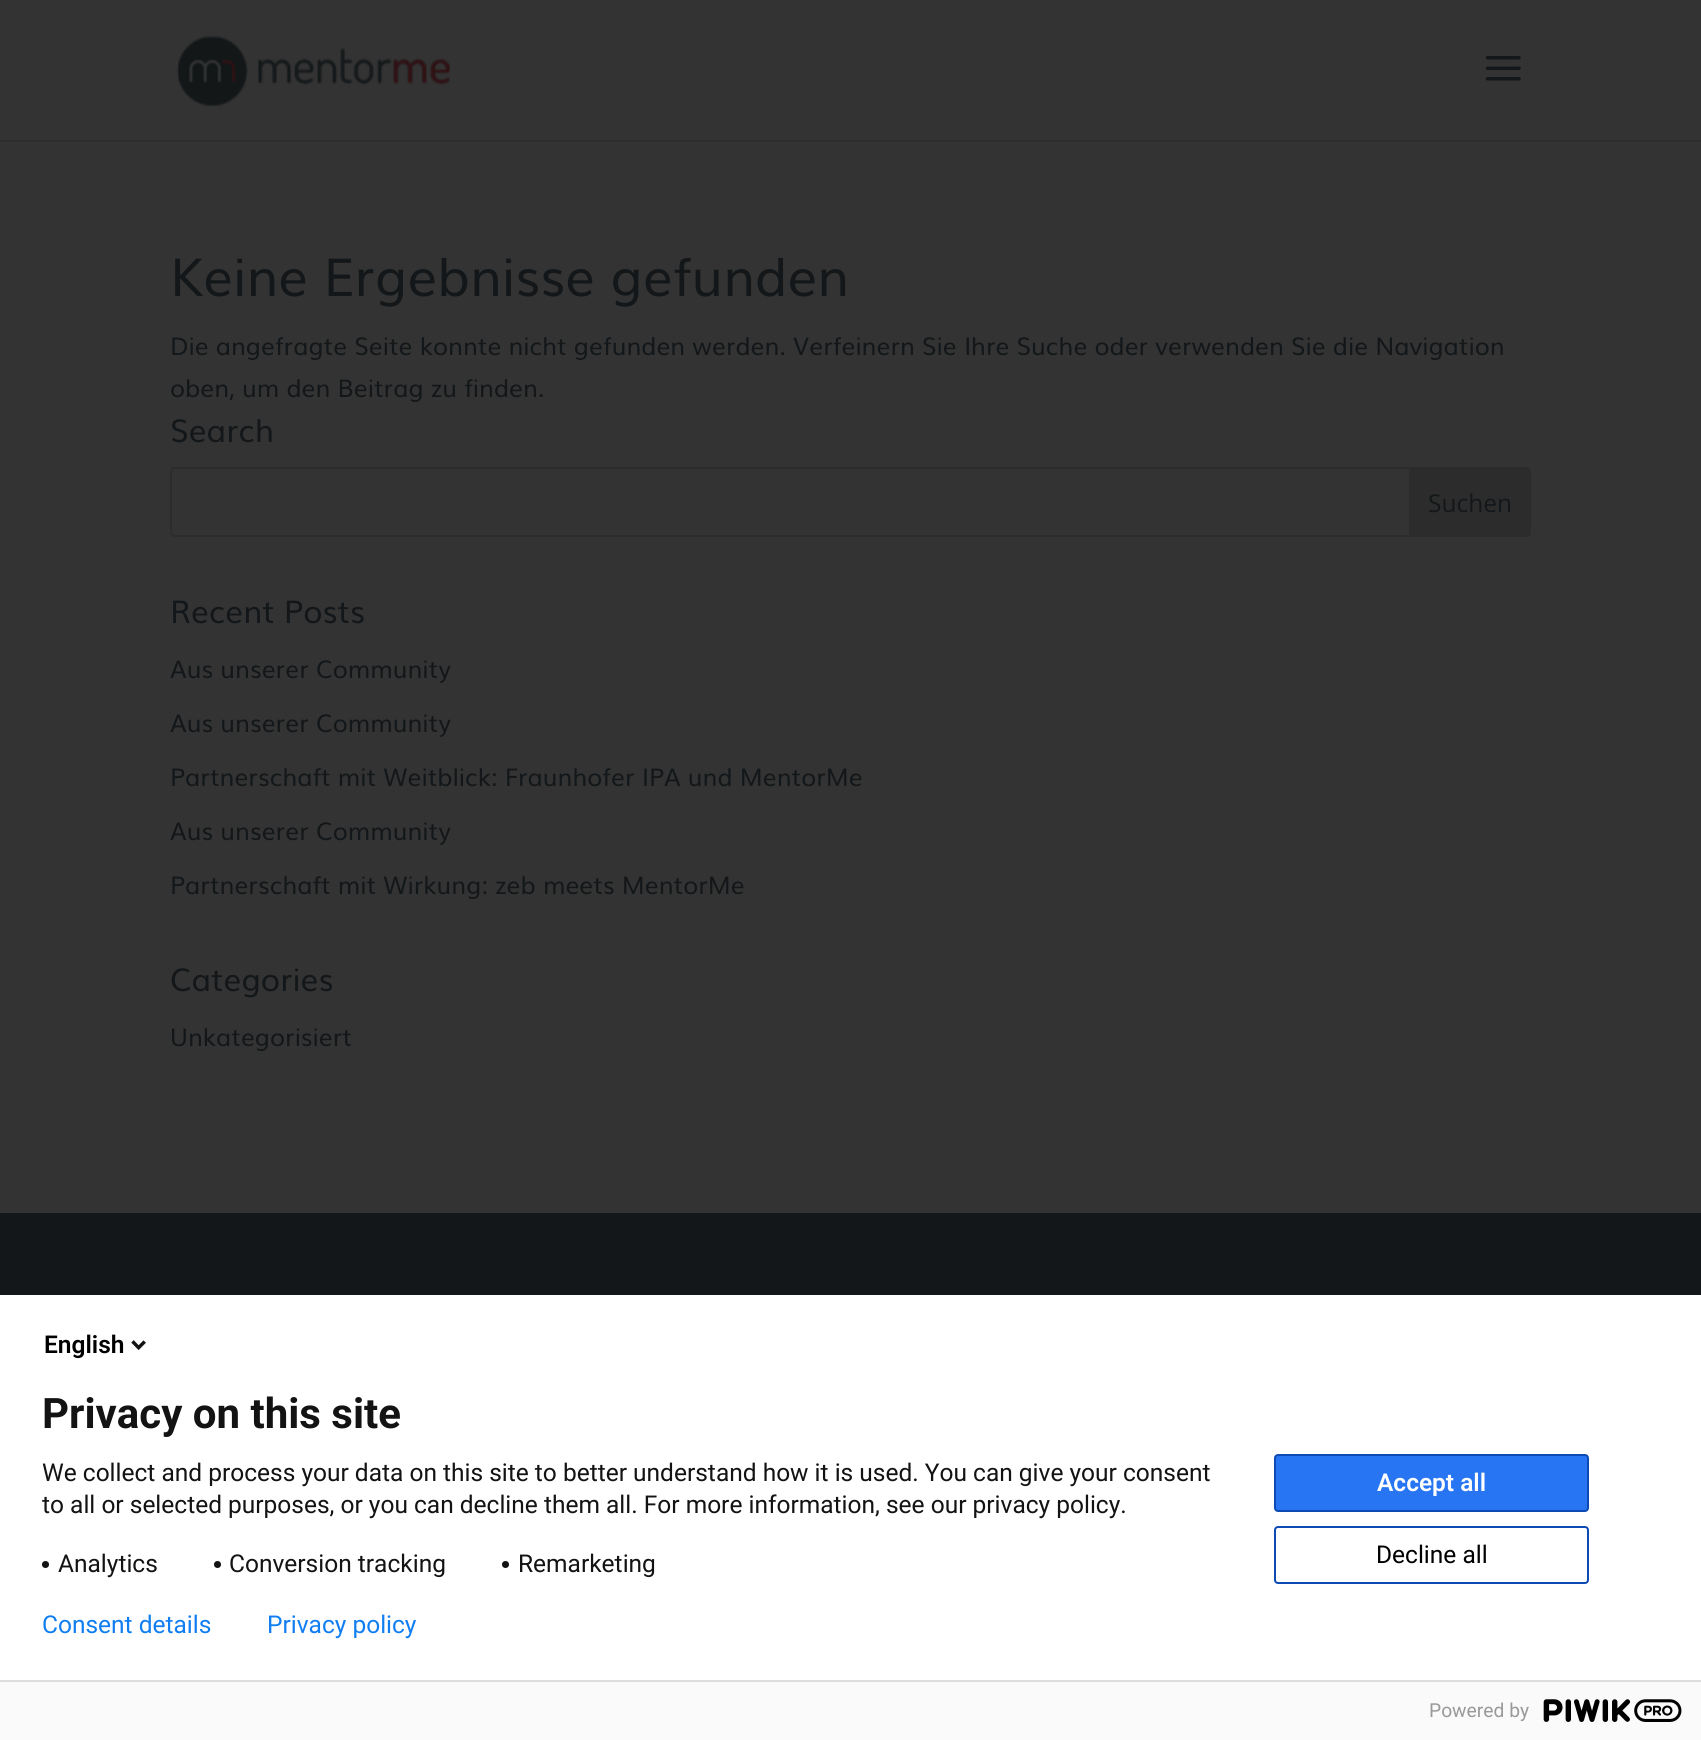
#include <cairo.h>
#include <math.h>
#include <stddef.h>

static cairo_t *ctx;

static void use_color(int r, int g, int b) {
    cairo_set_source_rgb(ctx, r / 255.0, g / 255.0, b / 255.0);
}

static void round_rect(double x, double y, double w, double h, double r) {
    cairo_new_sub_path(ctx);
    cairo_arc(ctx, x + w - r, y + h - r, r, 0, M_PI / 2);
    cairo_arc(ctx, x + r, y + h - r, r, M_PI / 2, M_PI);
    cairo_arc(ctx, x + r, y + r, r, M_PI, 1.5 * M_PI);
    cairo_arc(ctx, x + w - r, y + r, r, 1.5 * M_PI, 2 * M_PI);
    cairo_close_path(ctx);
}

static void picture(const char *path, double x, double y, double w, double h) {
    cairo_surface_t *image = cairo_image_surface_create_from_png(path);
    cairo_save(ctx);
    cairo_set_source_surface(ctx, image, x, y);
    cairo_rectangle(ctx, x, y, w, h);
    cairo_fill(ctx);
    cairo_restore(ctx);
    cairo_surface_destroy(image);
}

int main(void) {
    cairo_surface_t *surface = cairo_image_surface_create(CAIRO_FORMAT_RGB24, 1701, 1740);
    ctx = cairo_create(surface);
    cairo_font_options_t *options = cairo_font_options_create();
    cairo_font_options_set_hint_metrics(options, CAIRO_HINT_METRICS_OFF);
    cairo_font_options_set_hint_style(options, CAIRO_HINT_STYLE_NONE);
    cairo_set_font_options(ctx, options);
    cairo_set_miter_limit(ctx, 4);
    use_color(51, 51, 51);
    cairo_paint(ctx);
    use_color(46, 46, 46);
    cairo_rectangle(ctx, 0, 140, 1701, 2);
    cairo_fill(ctx);
    picture("img1.png", 176, 35, 275, 72);
    picture("img2.png", 1485, 56, 36, 25);
    cairo_select_font_face(ctx, "Muli", CAIRO_FONT_SLANT_NORMAL, CAIRO_FONT_WEIGHT_NORMAL);
    cairo_set_font_size(ctx, 52.5);
    use_color(19, 23, 25);
    cairo_move_to(ctx, 170, 296);
    cairo_show_text(ctx, "Keine Ergebnisse gefunden");
    cairo_set_font_size(ctx, 24.5);
    cairo_move_to(ctx, 170, 355);
    cairo_show_text(ctx, "Die angefragte Seite konnte nicht gefunden werden. Verfeinern Sie Ihre Suche oder verwenden Sie die Navigation");
    cairo_move_to(ctx, 170, 397);
    cairo_show_text(ctx, "oben, um den Beitrag zu finden.");
    cairo_set_font_size(ctx, 31.5);
    cairo_move_to(ctx, 170, 442);
    cairo_show_text(ctx, "Search");
    round_rect(171, 468, 1359, 68, 4);
    use_color(44, 44, 44);
    cairo_stroke(ctx);
    cairo_new_path(ctx);
    cairo_move_to(ctx, 1409, 467);
    cairo_line_to(ctx, 1526, 467);
    cairo_curve_to(ctx, 1529, 467, 1531, 469, 1531, 472);
    cairo_line_to(ctx, 1531, 532);
    cairo_curve_to(ctx, 1531, 535, 1529, 537, 1526, 537);
    cairo_line_to(ctx, 1409, 537);
    cairo_close_path(ctx);
    cairo_fill(ctx);
    cairo_select_font_face(ctx, "Open Sans", CAIRO_FONT_SLANT_NORMAL, CAIRO_FONT_WEIGHT_NORMAL);
    cairo_set_font_size(ctx, 24.5);
    use_color(19, 23, 25);
    cairo_move_to(ctx, 1428, 512);
    cairo_show_text(ctx, "Suchen");
    cairo_select_font_face(ctx, "Muli", CAIRO_FONT_SLANT_NORMAL, CAIRO_FONT_WEIGHT_NORMAL);
    cairo_set_font_size(ctx, 31.5);
    cairo_move_to(ctx, 170, 623);
    cairo_show_text(ctx, "Recent Posts");
    cairo_set_font_size(ctx, 24.5);
    cairo_move_to(ctx, 170, 678);
    cairo_show_text(ctx, "Aus unserer Community");
    cairo_move_to(ctx, 170, 732);
    cairo_show_text(ctx, "Aus unserer Community");
    cairo_move_to(ctx, 170, 786);
    cairo_show_text(ctx, "Partnerschaft mit Weitblick: Fraunhofer IPA und MentorMe");
    cairo_move_to(ctx, 170, 840);
    cairo_show_text(ctx, "Aus unserer Community");
    cairo_move_to(ctx, 170, 894);
    cairo_show_text(ctx, "Partnerschaft mit Wirkung: zeb meets MentorMe");
    cairo_set_font_size(ctx, 31.5);
    cairo_move_to(ctx, 170, 991);
    cairo_show_text(ctx, "Categories");
    cairo_set_font_size(ctx, 24.5);
    cairo_move_to(ctx, 170, 1046);
    cairo_show_text(ctx, "Unkategorisiert");
    cairo_rectangle(ctx, 0, 1213, 1701, 82);
    cairo_fill(ctx);
    use_color(255, 255, 255);
    cairo_rectangle(ctx, 0, 1295, 1701, 385);
    cairo_fill(ctx);
    cairo_select_font_face(ctx, "Roboto SemiBold", CAIRO_FONT_SLANT_NORMAL, CAIRO_FONT_WEIGHT_NORMAL);
    use_color(0, 0, 0);
    cairo_move_to(ctx, 44, 1353);
    cairo_show_text(ctx, "English");
    picture("img3.png", 131, 1340, 15, 10);
    cairo_select_font_face(ctx, "Roboto", CAIRO_FONT_SLANT_NORMAL, CAIRO_FONT_WEIGHT_BOLD);
    cairo_set_font_size(ctx, 42);
    use_color(19, 19, 19);
    cairo_move_to(ctx, 42, 1428);
    cairo_show_text(ctx, "Privacy on this site");
    cairo_select_font_face(ctx, "Roboto", CAIRO_FONT_SLANT_NORMAL, CAIRO_FONT_WEIGHT_NORMAL);
    cairo_set_font_size(ctx, 24.5);
    cairo_move_to(ctx, 42, 1481);
    cairo_show_text(ctx, "We collect and process your data on this site to better understand how it is used. You can give your consent");
    cairo_move_to(ctx, 42, 1513);
    cairo_show_text(ctx, "to all or selected purposes, or you can decline them all. For more information, see our privacy policy.");
    cairo_new_path(ctx);
    cairo_arc(ctx, 45.5, 1564.5, 3.5, 0, 2 * M_PI);
    cairo_fill(ctx);
    cairo_move_to(ctx, 58, 1572);
    cairo_show_text(ctx, "Analytics");
    cairo_new_path(ctx);
    cairo_arc(ctx, 217.5, 1564.5, 3.5, 0, 2 * M_PI);
    cairo_fill(ctx);
    cairo_move_to(ctx, 229, 1572);
    cairo_show_text(ctx, "Conversion tracking");
    cairo_new_path(ctx);
    cairo_arc(ctx, 505.5, 1564.5, 3.5, 0, 2 * M_PI);
    cairo_fill(ctx);
    cairo_move_to(ctx, 518, 1572);
    cairo_show_text(ctx, "Remarketing");
    use_color(39, 117, 242);
    round_rect(1275, 1455, 313, 56, 3);
    cairo_fill_preserve(ctx);
    use_color(11, 75, 179);
    cairo_stroke(ctx);
    cairo_select_font_face(ctx, "Roboto SemiBold", CAIRO_FONT_SLANT_NORMAL, CAIRO_FONT_WEIGHT_NORMAL);
    use_color(255, 255, 255);
    cairo_move_to(ctx, 1377, 1491);
    cairo_show_text(ctx, "Accept all");
    round_rect(1275, 1527, 313, 56, 3);
    use_color(11, 75, 179);
    cairo_stroke(ctx);
    cairo_select_font_face(ctx, "Roboto", CAIRO_FONT_SLANT_NORMAL, CAIRO_FONT_WEIGHT_NORMAL);
    use_color(0, 0, 0);
    cairo_move_to(ctx, 1376, 1563);
    cairo_show_text(ctx, "Decline all");
    use_color(16, 126, 241);
    cairo_move_to(ctx, 42, 1633);
    cairo_show_text(ctx, "Consent details");
    cairo_move_to(ctx, 267, 1633);
    cairo_show_text(ctx, "Privacy policy");
    use_color(250, 250, 250);
    cairo_rectangle(ctx, 0, 1682, 1701, 58);
    cairo_fill(ctx);
    use_color(221, 221, 221);
    cairo_rectangle(ctx, 0, 1680, 1701, 2);
    cairo_fill(ctx);
    cairo_set_font_size(ctx, 19.25);
    use_color(153, 153, 153);
    cairo_move_to(ctx, 1429, 1717);
    cairo_show_text(ctx, "Powered by");
    picture("img4.png", 1543, 1699, 139, 23);
    cairo_surface_write_to_png(surface, "result.png");
    cairo_font_options_destroy(options);
    cairo_destroy(ctx);
    cairo_surface_destroy(surface);
    return 0;
}
